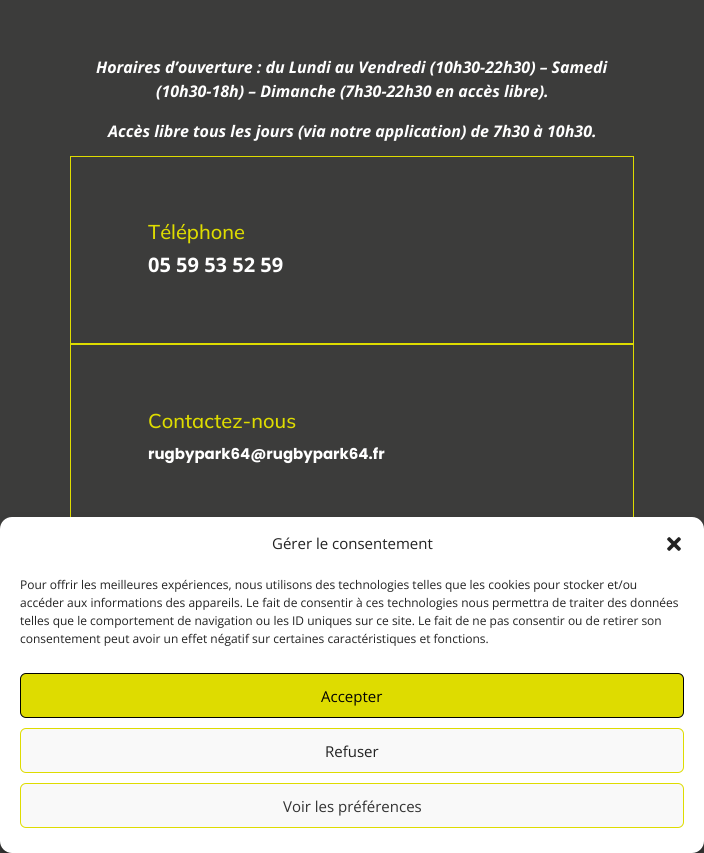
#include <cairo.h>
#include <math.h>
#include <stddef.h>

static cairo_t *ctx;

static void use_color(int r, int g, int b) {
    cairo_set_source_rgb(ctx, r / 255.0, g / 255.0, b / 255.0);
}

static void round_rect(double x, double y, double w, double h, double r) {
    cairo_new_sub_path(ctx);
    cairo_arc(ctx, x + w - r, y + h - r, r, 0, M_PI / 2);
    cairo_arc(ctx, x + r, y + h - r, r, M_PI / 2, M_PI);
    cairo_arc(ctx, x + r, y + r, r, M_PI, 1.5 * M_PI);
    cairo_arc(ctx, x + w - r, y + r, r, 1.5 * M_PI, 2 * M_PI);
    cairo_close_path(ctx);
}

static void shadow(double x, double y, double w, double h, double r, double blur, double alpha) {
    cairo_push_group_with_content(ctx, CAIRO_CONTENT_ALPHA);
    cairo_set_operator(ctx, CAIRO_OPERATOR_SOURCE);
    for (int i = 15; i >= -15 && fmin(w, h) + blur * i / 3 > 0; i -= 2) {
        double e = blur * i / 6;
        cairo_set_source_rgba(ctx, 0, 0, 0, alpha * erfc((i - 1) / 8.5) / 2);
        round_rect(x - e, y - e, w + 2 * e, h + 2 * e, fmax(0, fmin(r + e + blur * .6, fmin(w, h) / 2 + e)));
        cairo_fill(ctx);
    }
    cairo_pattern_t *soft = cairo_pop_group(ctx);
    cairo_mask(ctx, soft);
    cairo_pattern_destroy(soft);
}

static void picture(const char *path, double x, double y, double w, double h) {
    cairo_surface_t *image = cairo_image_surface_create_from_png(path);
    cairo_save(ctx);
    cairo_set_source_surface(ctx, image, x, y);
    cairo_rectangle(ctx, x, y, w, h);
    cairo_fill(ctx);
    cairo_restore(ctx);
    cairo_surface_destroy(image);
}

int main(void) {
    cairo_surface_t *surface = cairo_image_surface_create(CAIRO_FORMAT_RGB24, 704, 853);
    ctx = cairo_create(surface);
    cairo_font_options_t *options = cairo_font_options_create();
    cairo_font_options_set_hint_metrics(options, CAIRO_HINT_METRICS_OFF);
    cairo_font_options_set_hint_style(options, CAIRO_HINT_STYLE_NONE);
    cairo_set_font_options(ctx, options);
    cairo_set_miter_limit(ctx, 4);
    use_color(60, 60, 59);
    cairo_paint(ctx);
    cairo_select_font_face(ctx, "Open Sans", CAIRO_FONT_SLANT_ITALIC, CAIRO_FONT_WEIGHT_BOLD);
    cairo_set_font_size(ctx, 16);
    use_color(255, 255, 255);
    cairo_move_to(ctx, 96, 73);
    cairo_show_text(ctx, "Horaires d’ouverture : du Lundi au Vendredi (10h30-22h30) – Samedi");
    cairo_move_to(ctx, 156, 97);
    cairo_show_text(ctx, "(10h30-18h) – Dimanche (7h30-22h30 en accès libre).");
    cairo_move_to(ctx, 108, 137);
    cairo_show_text(ctx, "Accès libre tous les jours (via notre application) de 7h30 à 10h30.");
    cairo_rectangle(ctx, 70.5, 156.5, 563, 187);
    use_color(222, 220, 0);
    cairo_set_line_width(ctx, 1);
    cairo_stroke(ctx);
    cairo_select_font_face(ctx, "Mulish Medium", CAIRO_FONT_SLANT_NORMAL, CAIRO_FONT_WEIGHT_NORMAL);
    cairo_set_font_size(ctx, 20);
    cairo_move_to(ctx, 148, 239);
    cairo_show_text(ctx, "Téléphone");
    cairo_select_font_face(ctx, "Open Sans", CAIRO_FONT_SLANT_NORMAL, CAIRO_FONT_WEIGHT_BOLD);
    use_color(255, 255, 255);
    cairo_move_to(ctx, 148, 272);
    cairo_show_text(ctx, "05 59 53 52 59");
    cairo_rectangle(ctx, 70.5, 344.5, 563, 188);
    use_color(222, 220, 0);
    cairo_stroke(ctx);
    cairo_select_font_face(ctx, "Mulish Medium", CAIRO_FONT_SLANT_NORMAL, CAIRO_FONT_WEIGHT_NORMAL);
    cairo_move_to(ctx, 148, 428);
    cairo_show_text(ctx, "Contactez-nous");
    cairo_select_font_face(ctx, "Poppins", CAIRO_FONT_SLANT_NORMAL, CAIRO_FONT_WEIGHT_BOLD);
    cairo_set_font_size(ctx, 15);
    use_color(255, 255, 255);
    cairo_move_to(ctx, 148, 459);
    cairo_show_text(ctx, "rugbypark64@rugbypark64.fr");
    use_color(0, 0, 0);
    shadow(0, 523, 704, 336, 12, 3, 0.23);
    shadow(0, 527, 704, 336, 12, 10, 0.19);
    use_color(255, 255, 255);
    round_rect(0, 517, 704, 336, 12);
    cairo_fill(ctx);
    cairo_select_font_face(ctx, "Open Sans", CAIRO_FONT_SLANT_NORMAL, CAIRO_FONT_WEIGHT_NORMAL);
    use_color(34, 34, 34);
    cairo_move_to(ctx, 272, 549);
    cairo_show_text(ctx, "Gérer le consentement");
    picture("img1.png", 667, 537, 14, 14);
    cairo_set_font_size(ctx, 12);
    cairo_move_to(ctx, 20, 589);
    cairo_show_text(ctx, "Pour offrir les meilleures expériences, nous utilisons des technologies telles que les cookies pour stocker et/ou");
    cairo_move_to(ctx, 20, 607);
    cairo_show_text(ctx, "accéder aux informations des appareils. Le fait de consentir à ces technologies nous permettra de traiter des données");
    cairo_move_to(ctx, 20, 625);
    cairo_show_text(ctx, "telles que le comportement de navigation ou les ID uniques sur ce site. Le fait de ne pas consentir ou de retirer son");
    cairo_move_to(ctx, 20, 643);
    cairo_show_text(ctx, "consentement peut avoir un effet négatif sur certaines caractéristiques et fonctions.");
    use_color(222, 220, 0);
    round_rect(20.5, 673.5, 663, 44, 5.5);
    cairo_fill_preserve(ctx);
    use_color(2, 2, 2);
    cairo_stroke(ctx);
    cairo_set_font_size(ctx, 15);
    use_color(4, 4, 4);
    cairo_move_to(ctx, 321, 702);
    cairo_show_text(ctx, "Accepter");
    use_color(249, 249, 249);
    round_rect(20.5, 728.5, 663, 44, 5.5);
    cairo_fill_preserve(ctx);
    use_color(222, 220, 0);
    cairo_stroke(ctx);
    use_color(34, 34, 34);
    cairo_move_to(ctx, 325, 757);
    cairo_show_text(ctx, "Refuser");
    use_color(249, 249, 249);
    round_rect(20.5, 783.5, 663, 44, 5.5);
    cairo_fill_preserve(ctx);
    use_color(222, 220, 0);
    cairo_stroke(ctx);
    use_color(51, 51, 51);
    cairo_move_to(ctx, 283, 812);
    cairo_show_text(ctx, "Voir les préférences");
    cairo_surface_write_to_png(surface, "result.png");
    cairo_font_options_destroy(options);
    cairo_destroy(ctx);
    cairo_surface_destroy(surface);
    return 0;
}
